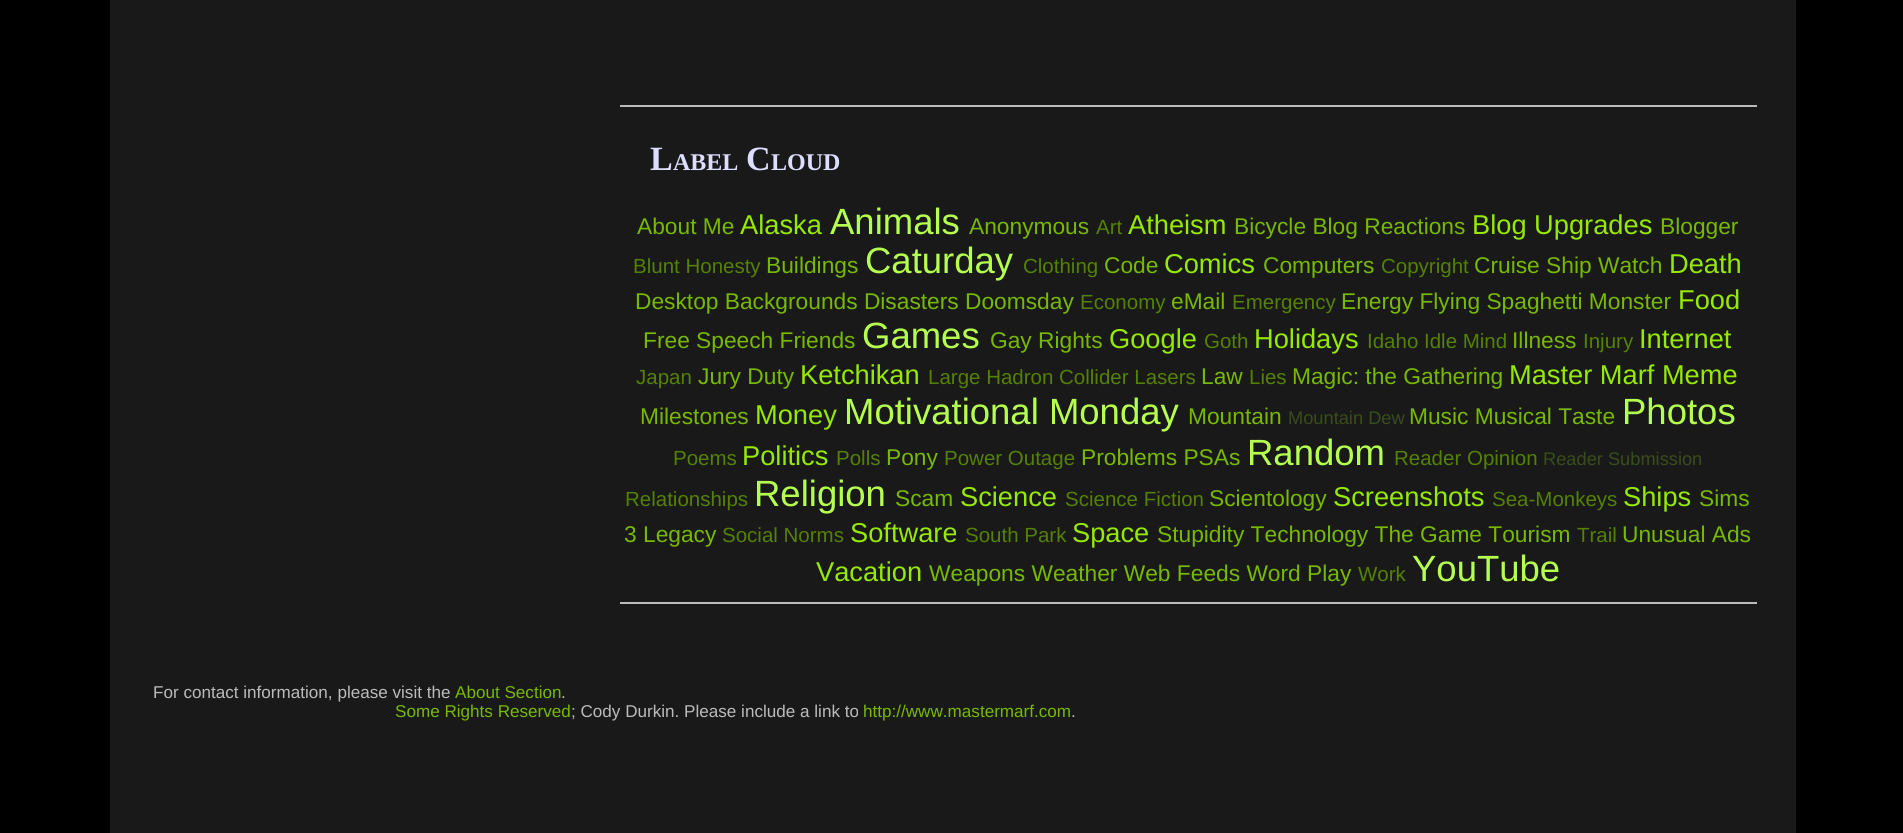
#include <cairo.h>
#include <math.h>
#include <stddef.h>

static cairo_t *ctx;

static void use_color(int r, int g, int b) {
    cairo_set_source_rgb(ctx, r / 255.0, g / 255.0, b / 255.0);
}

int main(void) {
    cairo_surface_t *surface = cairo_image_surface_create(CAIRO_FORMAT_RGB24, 1903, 833);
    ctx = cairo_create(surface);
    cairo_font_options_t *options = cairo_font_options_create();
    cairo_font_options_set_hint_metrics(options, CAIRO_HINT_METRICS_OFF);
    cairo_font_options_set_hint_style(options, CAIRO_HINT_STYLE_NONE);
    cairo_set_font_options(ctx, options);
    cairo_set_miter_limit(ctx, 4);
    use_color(0, 0, 0);
    cairo_paint(ctx);
    use_color(25, 25, 25);
    cairo_rectangle(ctx, 110, 0, 1686, 833);
    cairo_fill(ctx);
    use_color(187, 187, 187);
    cairo_rectangle(ctx, 620, 105, 1137, 2);
    cairo_fill(ctx);
    cairo_rectangle(ctx, 620, 602, 1137, 2);
    cairo_fill(ctx);
    cairo_select_font_face(ctx, "Liberation Serif", CAIRO_FONT_SLANT_NORMAL, CAIRO_FONT_WEIGHT_BOLD);
    cairo_set_font_size(ctx, 34);
    use_color(221, 221, 255);
    cairo_move_to(ctx, 650, 170);
    cairo_show_text(ctx, "L");
    cairo_set_font_size(ctx, 24);
    cairo_move_to(ctx, 673, 170);
    cairo_show_text(ctx, "ABEL");
    cairo_set_font_size(ctx, 34);
    cairo_move_to(ctx, 746, 170);
    cairo_show_text(ctx, "C");
    cairo_set_font_size(ctx, 24);
    cairo_move_to(ctx, 771, 170);
    cairo_show_text(ctx, "LOUD");
    cairo_select_font_face(ctx, "Liberation Sans", CAIRO_FONT_SLANT_NORMAL, CAIRO_FONT_WEIGHT_NORMAL);
    cairo_set_font_size(ctx, 22.75);
    use_color(119, 185, 0);
    cairo_move_to(ctx, 637, 234);
    cairo_show_text(ctx, "About Me");
    cairo_set_font_size(ctx, 27.25);
    use_color(150, 233, 0);
    cairo_move_to(ctx, 740, 234);
    cairo_show_text(ctx, "Alaska");
    cairo_set_font_size(ctx, 36.5);
    use_color(181, 255, 79);
    cairo_move_to(ctx, 830, 234);
    cairo_show_text(ctx, "Animals");
    cairo_set_font_size(ctx, 22.75);
    use_color(119, 185, 0);
    cairo_move_to(ctx, 969, 234);
    cairo_show_text(ctx, "Anonymous");
    cairo_set_font_size(ctx, 20.5);
    use_color(84, 129, 3);
    cairo_move_to(ctx, 1096, 234);
    cairo_show_text(ctx, "Art");
    cairo_set_font_size(ctx, 27.25);
    use_color(150, 233, 0);
    cairo_move_to(ctx, 1128, 234);
    cairo_show_text(ctx, "Atheism");
    cairo_set_font_size(ctx, 22.75);
    use_color(119, 185, 0);
    cairo_move_to(ctx, 1234, 234);
    cairo_show_text(ctx, "Bicycle Blog Reactions");
    cairo_set_font_size(ctx, 27.25);
    use_color(150, 233, 0);
    cairo_move_to(ctx, 1472, 234);
    cairo_show_text(ctx, "Blog Upgrades");
    cairo_set_font_size(ctx, 22.75);
    use_color(119, 185, 0);
    cairo_move_to(ctx, 1660, 234);
    cairo_show_text(ctx, "Blogger");
    cairo_set_font_size(ctx, 20.5);
    use_color(84, 129, 3);
    cairo_move_to(ctx, 633, 273);
    cairo_show_text(ctx, "Blunt Honesty");
    cairo_set_font_size(ctx, 22.75);
    use_color(119, 185, 0);
    cairo_move_to(ctx, 766, 273);
    cairo_show_text(ctx, "Buildings");
    cairo_set_font_size(ctx, 36.5);
    use_color(181, 255, 79);
    cairo_move_to(ctx, 865, 273);
    cairo_show_text(ctx, "Caturday");
    cairo_set_font_size(ctx, 20.5);
    use_color(84, 129, 3);
    cairo_move_to(ctx, 1023, 273);
    cairo_show_text(ctx, "Clothing");
    cairo_set_font_size(ctx, 22.75);
    use_color(119, 185, 0);
    cairo_move_to(ctx, 1104, 273);
    cairo_show_text(ctx, "Code");
    cairo_set_font_size(ctx, 27.25);
    use_color(150, 233, 0);
    cairo_move_to(ctx, 1164, 273);
    cairo_show_text(ctx, "Comics");
    cairo_set_font_size(ctx, 22.75);
    use_color(119, 185, 0);
    cairo_move_to(ctx, 1263, 273);
    cairo_show_text(ctx, "Computers");
    cairo_set_font_size(ctx, 20.5);
    use_color(84, 129, 3);
    cairo_move_to(ctx, 1381, 273);
    cairo_show_text(ctx, "Copyright");
    cairo_set_font_size(ctx, 22.75);
    use_color(119, 185, 0);
    cairo_move_to(ctx, 1474, 273);
    cairo_show_text(ctx, "Cruise Ship Watch");
    cairo_set_font_size(ctx, 27.25);
    use_color(150, 233, 0);
    cairo_move_to(ctx, 1669, 273);
    cairo_show_text(ctx, "Death");
    cairo_set_font_size(ctx, 22.75);
    use_color(119, 185, 0);
    cairo_move_to(ctx, 635, 309);
    cairo_show_text(ctx, "Desktop Backgrounds Disasters Doomsday");
    cairo_set_font_size(ctx, 20.5);
    use_color(84, 129, 3);
    cairo_move_to(ctx, 1080, 309);
    cairo_show_text(ctx, "Economy");
    cairo_set_font_size(ctx, 22.75);
    use_color(119, 185, 0);
    cairo_move_to(ctx, 1171, 309);
    cairo_show_text(ctx, "eMail");
    cairo_set_font_size(ctx, 20.5);
    use_color(84, 129, 3);
    cairo_move_to(ctx, 1232, 309);
    cairo_show_text(ctx, "Emergency");
    cairo_set_font_size(ctx, 22.75);
    use_color(119, 185, 0);
    cairo_move_to(ctx, 1341, 309);
    cairo_show_text(ctx, "Energy Flying Spaghetti Monster");
    cairo_set_font_size(ctx, 27.25);
    use_color(150, 233, 0);
    cairo_move_to(ctx, 1678, 309);
    cairo_show_text(ctx, "Food");
    cairo_set_font_size(ctx, 22.75);
    use_color(119, 185, 0);
    cairo_move_to(ctx, 643, 348);
    cairo_show_text(ctx, "Free Speech Friends");
    cairo_set_font_size(ctx, 36.5);
    use_color(181, 255, 79);
    cairo_move_to(ctx, 862, 348);
    cairo_show_text(ctx, "Games");
    cairo_set_font_size(ctx, 22.75);
    use_color(119, 185, 0);
    cairo_move_to(ctx, 990, 348);
    cairo_show_text(ctx, "Gay Rights");
    cairo_set_font_size(ctx, 27.25);
    use_color(150, 233, 0);
    cairo_move_to(ctx, 1109, 348);
    cairo_show_text(ctx, "Google");
    cairo_set_font_size(ctx, 20.5);
    use_color(84, 129, 3);
    cairo_move_to(ctx, 1204, 348);
    cairo_show_text(ctx, "Goth");
    cairo_set_font_size(ctx, 27.25);
    use_color(150, 233, 0);
    cairo_move_to(ctx, 1254, 348);
    cairo_show_text(ctx, "Holidays");
    cairo_set_font_size(ctx, 20.5);
    use_color(84, 129, 3);
    cairo_move_to(ctx, 1367, 348);
    cairo_show_text(ctx, "Idaho Idle Mind");
    cairo_set_font_size(ctx, 22.75);
    use_color(119, 185, 0);
    cairo_move_to(ctx, 1512, 348);
    cairo_show_text(ctx, "Illness");
    cairo_set_font_size(ctx, 20.5);
    use_color(84, 129, 3);
    cairo_move_to(ctx, 1583, 348);
    cairo_show_text(ctx, "Injury");
    cairo_set_font_size(ctx, 27.25);
    use_color(150, 233, 0);
    cairo_move_to(ctx, 1639, 348);
    cairo_show_text(ctx, "Internet");
    cairo_set_font_size(ctx, 20.5);
    use_color(84, 129, 3);
    cairo_move_to(ctx, 636, 384);
    cairo_show_text(ctx, "Japan");
    cairo_set_font_size(ctx, 22.75);
    use_color(119, 185, 0);
    cairo_move_to(ctx, 698, 384);
    cairo_show_text(ctx, "Jury Duty");
    cairo_set_font_size(ctx, 27.25);
    use_color(150, 233, 0);
    cairo_move_to(ctx, 800, 384);
    cairo_show_text(ctx, "Ketchikan");
    cairo_set_font_size(ctx, 20.5);
    use_color(84, 129, 3);
    cairo_move_to(ctx, 928, 384);
    cairo_show_text(ctx, "Large Hadron Collider Lasers");
    cairo_set_font_size(ctx, 22.75);
    use_color(119, 185, 0);
    cairo_move_to(ctx, 1201, 384);
    cairo_show_text(ctx, "Law");
    cairo_set_font_size(ctx, 20.5);
    use_color(84, 129, 3);
    cairo_move_to(ctx, 1249, 384);
    cairo_show_text(ctx, "Lies");
    cairo_set_font_size(ctx, 22.75);
    use_color(119, 185, 0);
    cairo_move_to(ctx, 1292, 384);
    cairo_show_text(ctx, "Magic: the Gathering");
    cairo_set_font_size(ctx, 27.25);
    use_color(150, 233, 0);
    cairo_move_to(ctx, 1509, 384);
    cairo_show_text(ctx, "Master Marf Meme");
    cairo_set_font_size(ctx, 22.75);
    use_color(119, 185, 0);
    cairo_move_to(ctx, 640, 424);
    cairo_show_text(ctx, "Milestones");
    cairo_set_font_size(ctx, 27.25);
    use_color(150, 233, 0);
    cairo_move_to(ctx, 755, 424);
    cairo_show_text(ctx, "Money");
    cairo_set_font_size(ctx, 36.5);
    use_color(181, 255, 79);
    cairo_move_to(ctx, 844, 424);
    cairo_show_text(ctx, "Motivational Monday");
    cairo_set_font_size(ctx, 22.75);
    use_color(119, 185, 0);
    cairo_move_to(ctx, 1188, 424);
    cairo_show_text(ctx, "Mountain");
    cairo_set_font_size(ctx, 18.25);
    use_color(56, 77, 27);
    cairo_move_to(ctx, 1288, 424);
    cairo_show_text(ctx, "Mountain Dew");
    cairo_set_font_size(ctx, 22.75);
    use_color(119, 185, 0);
    cairo_move_to(ctx, 1409, 424);
    cairo_show_text(ctx, "Music Musical Taste");
    cairo_set_font_size(ctx, 36.5);
    use_color(181, 255, 79);
    cairo_move_to(ctx, 1622, 424);
    cairo_show_text(ctx, "Photos");
    cairo_set_font_size(ctx, 20.5);
    use_color(84, 129, 3);
    cairo_move_to(ctx, 673, 465);
    cairo_show_text(ctx, "Poems");
    cairo_set_font_size(ctx, 27.25);
    use_color(150, 233, 0);
    cairo_move_to(ctx, 742, 465);
    cairo_show_text(ctx, "Politics");
    cairo_set_font_size(ctx, 20.5);
    use_color(84, 129, 3);
    cairo_move_to(ctx, 836, 465);
    cairo_show_text(ctx, "Polls");
    cairo_set_font_size(ctx, 22.75);
    use_color(119, 185, 0);
    cairo_move_to(ctx, 886, 465);
    cairo_show_text(ctx, "Pony");
    cairo_set_font_size(ctx, 20.5);
    use_color(84, 129, 3);
    cairo_move_to(ctx, 944, 465);
    cairo_show_text(ctx, "Power Outage");
    cairo_set_font_size(ctx, 22.75);
    use_color(119, 185, 0);
    cairo_move_to(ctx, 1081, 465);
    cairo_show_text(ctx, "Problems PSAs");
    cairo_set_font_size(ctx, 36.5);
    use_color(181, 255, 79);
    cairo_move_to(ctx, 1247, 465);
    cairo_show_text(ctx, "Random");
    cairo_set_font_size(ctx, 20.5);
    use_color(84, 129, 3);
    cairo_move_to(ctx, 1394, 465);
    cairo_show_text(ctx, "Reader Opinion");
    cairo_set_font_size(ctx, 18.25);
    use_color(56, 77, 27);
    cairo_move_to(ctx, 1543, 465);
    cairo_show_text(ctx, "Reader Submission");
    cairo_set_font_size(ctx, 20.5);
    use_color(84, 129, 3);
    cairo_move_to(ctx, 625, 506);
    cairo_show_text(ctx, "Relationships");
    cairo_set_font_size(ctx, 36.5);
    use_color(181, 255, 79);
    cairo_move_to(ctx, 754, 506);
    cairo_show_text(ctx, "Religion");
    cairo_set_font_size(ctx, 22.75);
    use_color(119, 185, 0);
    cairo_move_to(ctx, 895, 506);
    cairo_show_text(ctx, "Scam");
    cairo_set_font_size(ctx, 27.25);
    use_color(150, 233, 0);
    cairo_move_to(ctx, 960, 506);
    cairo_show_text(ctx, "Science");
    cairo_set_font_size(ctx, 20.5);
    use_color(84, 129, 3);
    cairo_move_to(ctx, 1065, 506);
    cairo_show_text(ctx, "Science Fiction");
    cairo_set_font_size(ctx, 22.75);
    use_color(119, 185, 0);
    cairo_move_to(ctx, 1209, 506);
    cairo_show_text(ctx, "Scientology");
    cairo_set_font_size(ctx, 27.25);
    use_color(150, 233, 0);
    cairo_move_to(ctx, 1333, 506);
    cairo_show_text(ctx, "Screenshots");
    cairo_set_font_size(ctx, 20.5);
    use_color(84, 129, 3);
    cairo_move_to(ctx, 1492, 506);
    cairo_show_text(ctx, "Sea-Monkeys");
    cairo_set_font_size(ctx, 27.25);
    use_color(150, 233, 0);
    cairo_move_to(ctx, 1623, 506);
    cairo_show_text(ctx, "Ships");
    cairo_set_font_size(ctx, 22.75);
    use_color(119, 185, 0);
    cairo_move_to(ctx, 1699, 506);
    cairo_show_text(ctx, "Sims");
    cairo_move_to(ctx, 624, 542);
    cairo_show_text(ctx, "3 Legacy");
    cairo_set_font_size(ctx, 20.5);
    use_color(84, 129, 3);
    cairo_move_to(ctx, 722, 542);
    cairo_show_text(ctx, "Social Norms");
    cairo_set_font_size(ctx, 27.25);
    use_color(150, 233, 0);
    cairo_move_to(ctx, 850, 542);
    cairo_show_text(ctx, "Software");
    cairo_set_font_size(ctx, 20.5);
    use_color(84, 129, 3);
    cairo_move_to(ctx, 965, 542);
    cairo_show_text(ctx, "South Park");
    cairo_set_font_size(ctx, 27.25);
    use_color(150, 233, 0);
    cairo_move_to(ctx, 1072, 542);
    cairo_show_text(ctx, "Space");
    cairo_set_font_size(ctx, 22.75);
    use_color(119, 185, 0);
    cairo_move_to(ctx, 1157, 542);
    cairo_show_text(ctx, "Stupidity Technology The Game Tourism");
    cairo_set_font_size(ctx, 20.5);
    use_color(84, 129, 3);
    cairo_move_to(ctx, 1577, 542);
    cairo_show_text(ctx, "Trail");
    cairo_set_font_size(ctx, 22.75);
    use_color(119, 185, 0);
    cairo_move_to(ctx, 1622, 542);
    cairo_show_text(ctx, "Unusual Ads");
    cairo_set_font_size(ctx, 27.25);
    use_color(150, 233, 0);
    cairo_move_to(ctx, 816, 581);
    cairo_show_text(ctx, "Vacation");
    cairo_set_font_size(ctx, 22.75);
    use_color(119, 185, 0);
    cairo_move_to(ctx, 929, 581);
    cairo_show_text(ctx, "Weapons Weather Web Feeds Word Play");
    cairo_set_font_size(ctx, 20.5);
    use_color(84, 129, 3);
    cairo_move_to(ctx, 1358, 581);
    cairo_show_text(ctx, "Work");
    cairo_set_font_size(ctx, 36.5);
    use_color(181, 255, 79);
    cairo_move_to(ctx, 1412, 581);
    cairo_show_text(ctx, "YouTube");
    cairo_set_font_size(ctx, 17.1);
    use_color(187, 187, 187);
    cairo_move_to(ctx, 153, 698);
    cairo_show_text(ctx, "For contact information, please visit the");
    use_color(119, 185, 0);
    cairo_move_to(ctx, 455, 698);
    cairo_show_text(ctx, "About Section");
    use_color(187, 187, 187);
    cairo_move_to(ctx, 561, 698);
    cairo_show_text(ctx, ".");
    use_color(119, 185, 0);
    cairo_move_to(ctx, 395, 717);
    cairo_show_text(ctx, "Some Rights Reserved");
    use_color(187, 187, 187);
    cairo_move_to(ctx, 571, 717);
    cairo_show_text(ctx, "; Cody Durkin. Please include a link to");
    use_color(119, 185, 0);
    cairo_move_to(ctx, 863, 717);
    cairo_show_text(ctx, "http://www.mastermarf.com");
    use_color(187, 187, 187);
    cairo_move_to(ctx, 1071, 717);
    cairo_show_text(ctx, ".");
    cairo_surface_write_to_png(surface, "result.png");
    cairo_font_options_destroy(options);
    cairo_destroy(ctx);
    cairo_surface_destroy(surface);
    return 0;
}
